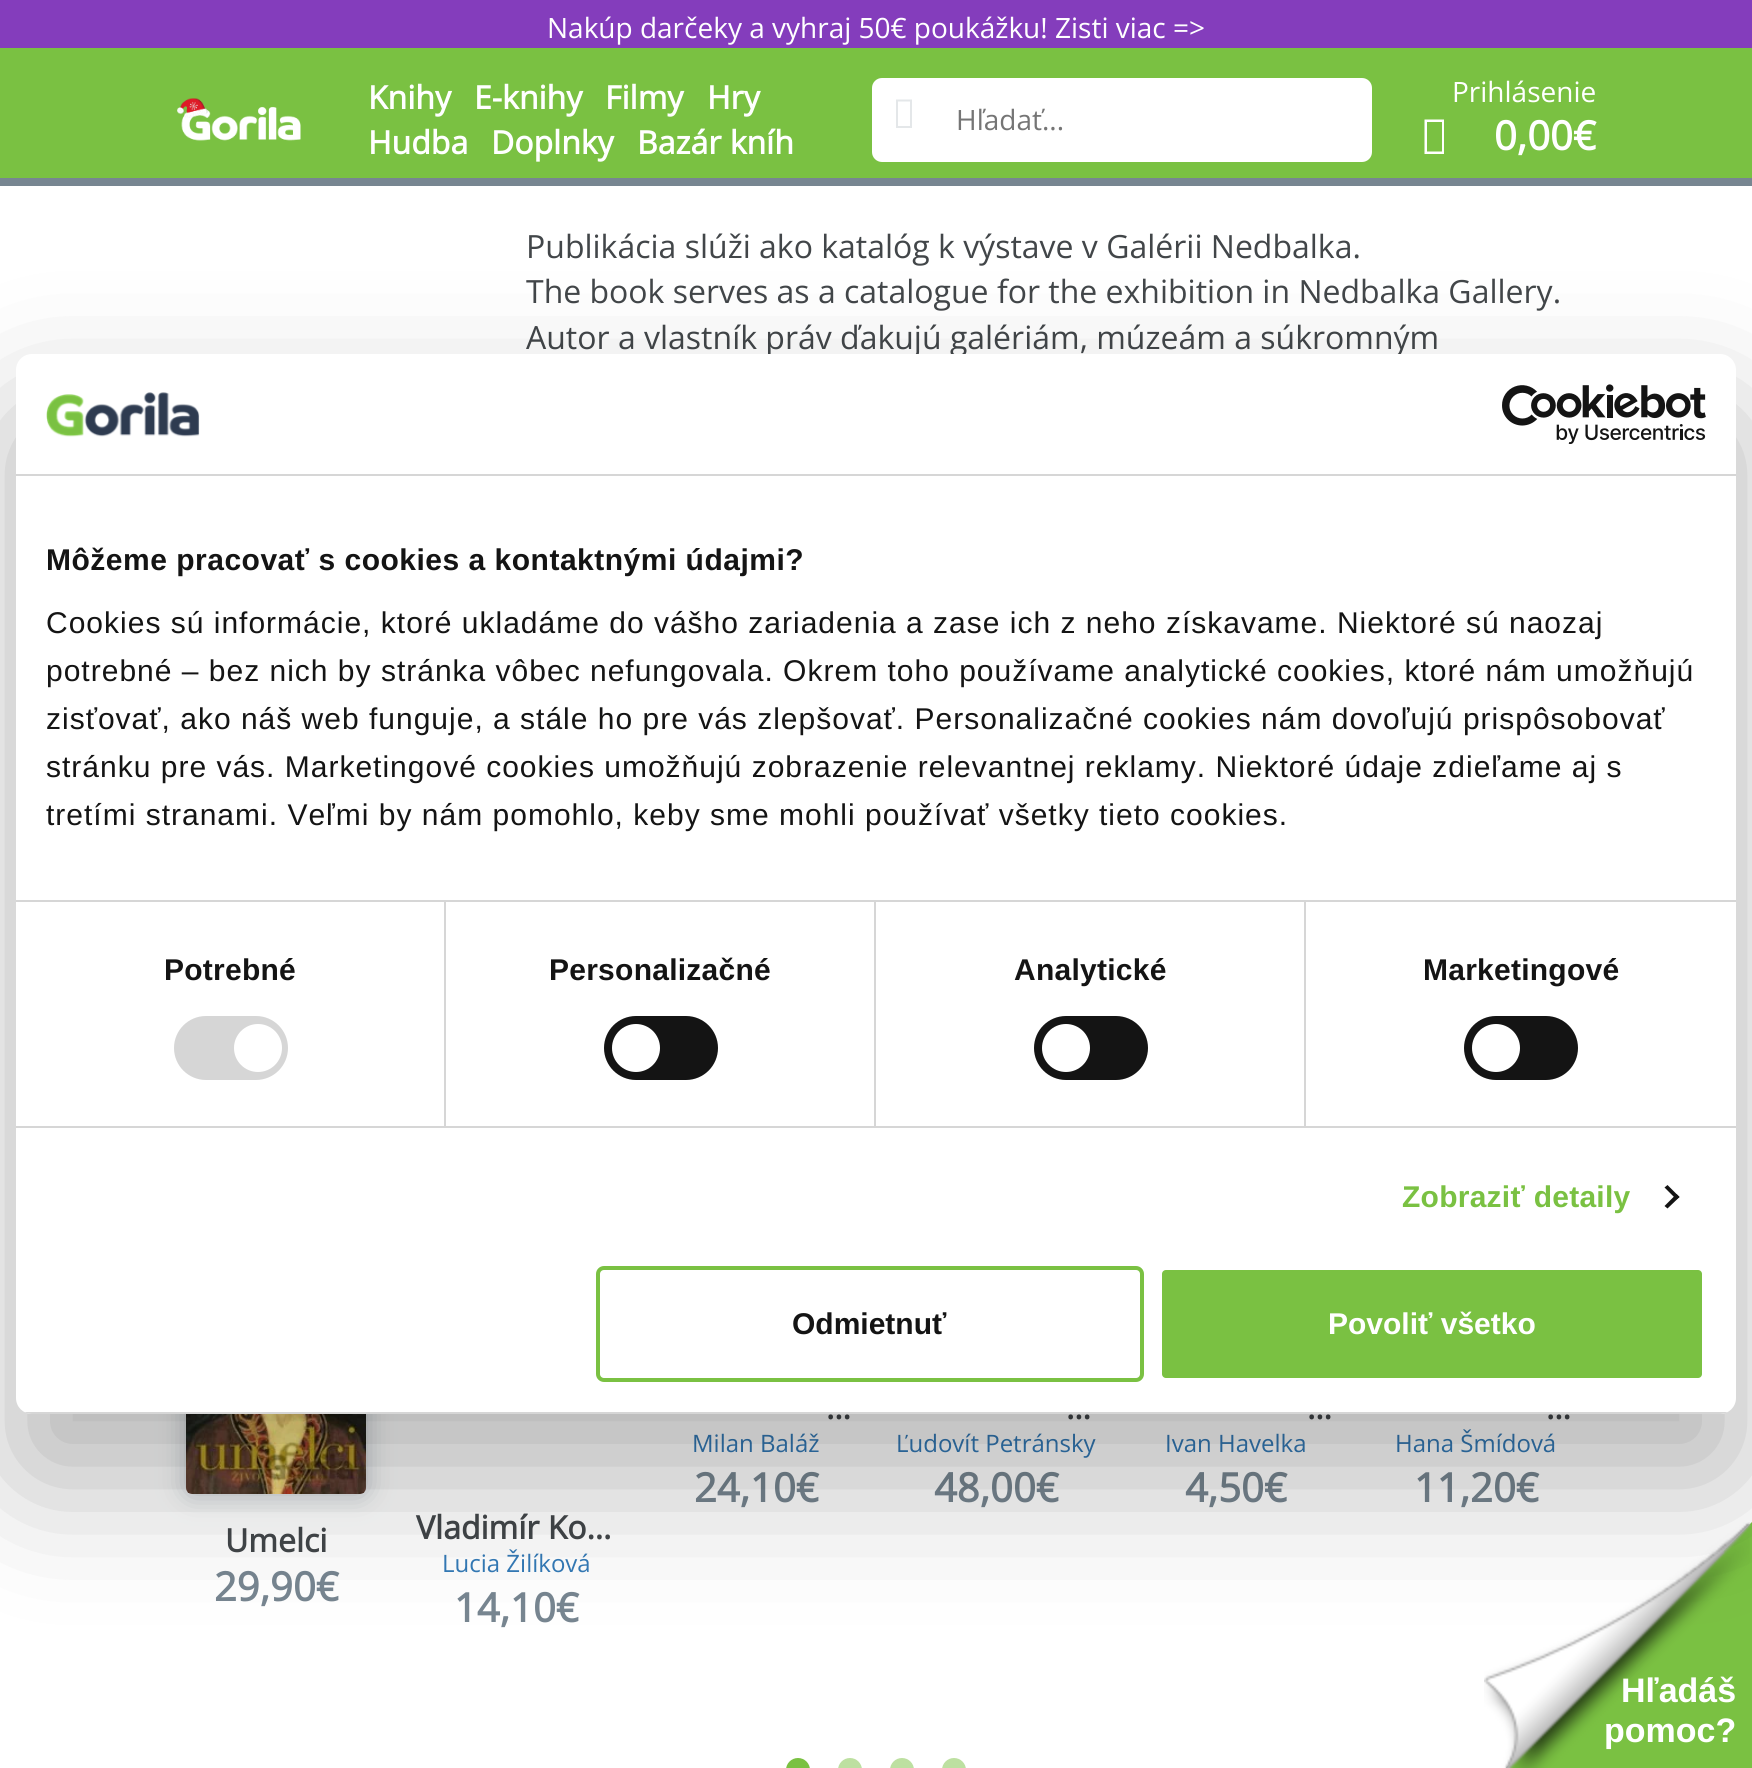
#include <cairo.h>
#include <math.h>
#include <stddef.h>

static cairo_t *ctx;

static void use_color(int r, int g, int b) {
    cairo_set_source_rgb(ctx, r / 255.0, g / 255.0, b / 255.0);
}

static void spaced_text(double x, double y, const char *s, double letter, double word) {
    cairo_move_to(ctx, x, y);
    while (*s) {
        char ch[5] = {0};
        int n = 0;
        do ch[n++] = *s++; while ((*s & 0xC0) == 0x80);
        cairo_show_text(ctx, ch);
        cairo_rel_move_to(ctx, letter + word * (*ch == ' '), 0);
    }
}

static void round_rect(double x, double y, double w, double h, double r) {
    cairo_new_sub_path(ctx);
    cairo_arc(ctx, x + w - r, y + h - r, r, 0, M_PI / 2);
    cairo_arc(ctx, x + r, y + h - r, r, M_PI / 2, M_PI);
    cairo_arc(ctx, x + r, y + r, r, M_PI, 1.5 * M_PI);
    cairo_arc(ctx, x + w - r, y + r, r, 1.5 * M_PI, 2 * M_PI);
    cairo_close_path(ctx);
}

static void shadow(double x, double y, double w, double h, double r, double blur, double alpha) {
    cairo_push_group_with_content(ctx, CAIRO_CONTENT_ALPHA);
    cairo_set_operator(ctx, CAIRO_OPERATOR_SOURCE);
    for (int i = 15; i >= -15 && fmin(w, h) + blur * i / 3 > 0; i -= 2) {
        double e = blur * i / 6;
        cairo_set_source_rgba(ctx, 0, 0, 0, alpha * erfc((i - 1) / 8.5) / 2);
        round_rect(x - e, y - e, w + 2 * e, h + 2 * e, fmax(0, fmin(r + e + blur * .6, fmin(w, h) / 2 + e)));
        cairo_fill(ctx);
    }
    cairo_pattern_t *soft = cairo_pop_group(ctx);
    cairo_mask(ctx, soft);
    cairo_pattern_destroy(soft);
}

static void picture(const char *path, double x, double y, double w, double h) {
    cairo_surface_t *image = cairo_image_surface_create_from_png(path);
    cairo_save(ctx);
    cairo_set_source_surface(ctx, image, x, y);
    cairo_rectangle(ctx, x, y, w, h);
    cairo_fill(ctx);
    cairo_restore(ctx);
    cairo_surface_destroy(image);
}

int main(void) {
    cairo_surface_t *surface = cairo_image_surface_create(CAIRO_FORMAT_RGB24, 1752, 1768);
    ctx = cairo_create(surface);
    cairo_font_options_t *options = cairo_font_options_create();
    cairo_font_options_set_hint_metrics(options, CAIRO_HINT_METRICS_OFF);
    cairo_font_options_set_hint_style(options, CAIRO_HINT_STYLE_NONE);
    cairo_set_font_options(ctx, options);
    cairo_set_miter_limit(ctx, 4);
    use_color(255, 255, 255);
    cairo_paint(ctx);
    use_color(132, 61, 188);
    cairo_rectangle(ctx, 0, 0, 1752, 48);
    cairo_fill(ctx);
    cairo_select_font_face(ctx, "Open Sans", CAIRO_FONT_SLANT_NORMAL, CAIRO_FONT_WEIGHT_NORMAL);
    cairo_set_font_size(ctx, 28);
    use_color(255, 255, 255);
    cairo_move_to(ctx, 547, 38);
    cairo_show_text(ctx, "Nakúp darčeky a vyhraj 50€ poukážku! Zisti viac =>");
    use_color(122, 193, 66);
    cairo_rectangle(ctx, 0, 48, 1752, 130);
    cairo_fill(ctx);
    use_color(119, 134, 145);
    cairo_rectangle(ctx, 0, 178, 1752, 8);
    cairo_fill(ctx);
    picture("img1.png", 177, 98, 124, 43);
    cairo_select_font_face(ctx, "Open Sans", CAIRO_FONT_SLANT_NORMAL, CAIRO_FONT_WEIGHT_BOLD);
    cairo_set_font_size(ctx, 32);
    use_color(255, 255, 255);
    cairo_move_to(ctx, 368, 109);
    cairo_show_text(ctx, "Knihy");
    cairo_move_to(ctx, 474, 109);
    cairo_show_text(ctx, "E-knihy");
    cairo_move_to(ctx, 605, 109);
    cairo_show_text(ctx, "Filmy");
    cairo_move_to(ctx, 707, 109);
    cairo_show_text(ctx, "Hry");
    cairo_move_to(ctx, 368, 154);
    cairo_show_text(ctx, "Hudba");
    cairo_move_to(ctx, 491, 154);
    cairo_show_text(ctx, "Doplnky");
    cairo_move_to(ctx, 637, 154);
    cairo_show_text(ctx, "Bazár kníh");
    round_rect(872, 78, 500, 84, 10);
    cairo_fill(ctx);
    use_color(228, 231, 233);
    cairo_new_path(ctx);
    cairo_move_to(ctx, 896, 128);
    cairo_line_to(ctx, 896, 99.5);
    cairo_line_to(ctx, 912, 99.5);
    cairo_line_to(ctx, 912, 128);
    cairo_close_path(ctx);
    cairo_move_to(ctx, 898, 126);
    cairo_line_to(ctx, 910, 126);
    cairo_line_to(ctx, 910, 101.5);
    cairo_line_to(ctx, 898, 101.5);
    cairo_close_path(ctx);
    cairo_fill(ctx);
    cairo_select_font_face(ctx, "Open Sans", CAIRO_FONT_SLANT_NORMAL, CAIRO_FONT_WEIGHT_NORMAL);
    cairo_set_font_size(ctx, 28);
    use_color(117, 117, 117);
    cairo_move_to(ctx, 956, 130);
    cairo_show_text(ctx, "Hľadať...");
    use_color(255, 255, 255);
    cairo_move_to(ctx, 1452, 102);
    cairo_show_text(ctx, "Prihlásenie");
    cairo_new_path(ctx);
    cairo_move_to(ctx, 1424.5, 154);
    cairo_line_to(ctx, 1424.5, 119.5);
    cairo_line_to(ctx, 1444, 119.5);
    cairo_line_to(ctx, 1444, 154);
    cairo_close_path(ctx);
    cairo_move_to(ctx, 1427, 151.5);
    cairo_line_to(ctx, 1442, 151.5);
    cairo_line_to(ctx, 1442, 122);
    cairo_line_to(ctx, 1427, 122);
    cairo_close_path(ctx);
    cairo_fill(ctx);
    cairo_select_font_face(ctx, "Open Sans", CAIRO_FONT_SLANT_NORMAL, CAIRO_FONT_WEIGHT_BOLD);
    cairo_set_font_size(ctx, 40);
    cairo_move_to(ctx, 1494, 150);
    cairo_show_text(ctx, "0,00€");
    cairo_select_font_face(ctx, "Open Sans", CAIRO_FONT_SLANT_NORMAL, CAIRO_FONT_WEIGHT_NORMAL);
    cairo_set_font_size(ctx, 32);
    use_color(66, 70, 73);
    cairo_move_to(ctx, 526, 258);
    cairo_show_text(ctx, "Publikácia slúži ako katalóg k výstave v Galérii Nedbalka.");
    cairo_move_to(ctx, 526, 303);
    cairo_show_text(ctx, "The book serves as a catalogue for the exhibition in Nedbalka Gallery.");
    cairo_move_to(ctx, 526, 349);
    cairo_show_text(ctx, "Autor a vlastník práv ďakujú galériám, múzeám a súkromným");
    cairo_select_font_face(ctx, "Open Sans", CAIRO_FONT_SLANT_NORMAL, CAIRO_FONT_WEIGHT_BOLD);
    cairo_move_to(ctx, 826, 1419);
    cairo_show_text(ctx, "…");
    cairo_select_font_face(ctx, "Open Sans", CAIRO_FONT_SLANT_NORMAL, CAIRO_FONT_WEIGHT_NORMAL);
    cairo_set_font_size(ctx, 24);
    use_color(51, 122, 183);
    cairo_move_to(ctx, 692, 1452);
    cairo_show_text(ctx, "Milan Baláž");
    cairo_select_font_face(ctx, "Open Sans", CAIRO_FONT_SLANT_NORMAL, CAIRO_FONT_WEIGHT_BOLD);
    cairo_set_font_size(ctx, 40);
    use_color(119, 134, 145);
    cairo_move_to(ctx, 694, 1502);
    cairo_show_text(ctx, "24,10€");
    cairo_set_font_size(ctx, 32);
    use_color(66, 70, 73);
    cairo_move_to(ctx, 1066, 1419);
    cairo_show_text(ctx, "…");
    cairo_select_font_face(ctx, "Open Sans", CAIRO_FONT_SLANT_NORMAL, CAIRO_FONT_WEIGHT_NORMAL);
    cairo_set_font_size(ctx, 24);
    use_color(51, 122, 183);
    cairo_move_to(ctx, 896, 1452);
    cairo_show_text(ctx, "Ľudovít Petránsky");
    cairo_select_font_face(ctx, "Open Sans", CAIRO_FONT_SLANT_NORMAL, CAIRO_FONT_WEIGHT_BOLD);
    cairo_set_font_size(ctx, 40);
    use_color(119, 134, 145);
    cairo_move_to(ctx, 934, 1502);
    cairo_show_text(ctx, "48,00€");
    cairo_set_font_size(ctx, 32);
    use_color(66, 70, 73);
    cairo_move_to(ctx, 1307, 1419);
    cairo_show_text(ctx, "…");
    cairo_select_font_face(ctx, "Open Sans", CAIRO_FONT_SLANT_NORMAL, CAIRO_FONT_WEIGHT_NORMAL);
    cairo_set_font_size(ctx, 24);
    use_color(51, 122, 183);
    cairo_move_to(ctx, 1165, 1452);
    cairo_show_text(ctx, "Ivan Havelka");
    cairo_select_font_face(ctx, "Open Sans", CAIRO_FONT_SLANT_NORMAL, CAIRO_FONT_WEIGHT_BOLD);
    cairo_set_font_size(ctx, 40);
    use_color(119, 134, 145);
    cairo_move_to(ctx, 1185, 1502);
    cairo_show_text(ctx, "4,50€");
    cairo_set_font_size(ctx, 32);
    use_color(66, 70, 73);
    cairo_move_to(ctx, 1546, 1419);
    cairo_show_text(ctx, "…");
    cairo_select_font_face(ctx, "Open Sans", CAIRO_FONT_SLANT_NORMAL, CAIRO_FONT_WEIGHT_NORMAL);
    cairo_set_font_size(ctx, 24);
    use_color(51, 122, 183);
    cairo_move_to(ctx, 1395, 1452);
    cairo_show_text(ctx, "Hana Šmídová");
    cairo_select_font_face(ctx, "Open Sans", CAIRO_FONT_SLANT_NORMAL, CAIRO_FONT_WEIGHT_BOLD);
    cairo_set_font_size(ctx, 40);
    use_color(119, 134, 145);
    cairo_move_to(ctx, 1414, 1502);
    cairo_show_text(ctx, "11,20€");
    use_color(119, 134, 145);
    shadow(186, 1280, 180, 214, 6, 13, 0.5);
    picture("img2.png", 186, 1414, 180, 80);
    cairo_set_font_size(ctx, 32);
    use_color(66, 70, 73);
    cairo_move_to(ctx, 225, 1552);
    cairo_show_text(ctx, "Umelci");
    cairo_set_font_size(ctx, 40);
    use_color(119, 134, 145);
    cairo_move_to(ctx, 214, 1601);
    cairo_show_text(ctx, "29,90€");
    cairo_set_font_size(ctx, 32);
    use_color(66, 70, 73);
    cairo_move_to(ctx, 416, 1539);
    cairo_show_text(ctx, "Vladimír Ko…");
    cairo_select_font_face(ctx, "Open Sans", CAIRO_FONT_SLANT_NORMAL, CAIRO_FONT_WEIGHT_NORMAL);
    cairo_set_font_size(ctx, 24);
    use_color(51, 122, 183);
    cairo_move_to(ctx, 442, 1572);
    cairo_show_text(ctx, "Lucia Žilíková");
    cairo_select_font_face(ctx, "Open Sans", CAIRO_FONT_SLANT_NORMAL, CAIRO_FONT_WEIGHT_BOLD);
    cairo_set_font_size(ctx, 40);
    use_color(119, 134, 145);
    cairo_move_to(ctx, 454, 1622);
    cairo_show_text(ctx, "14,10€");
    use_color(122, 193, 66);
    round_rect(786, 1758, 24, 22, 12);
    cairo_fill(ctx);
    use_color(189, 224, 161);
    round_rect(838, 1758, 24, 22, 12);
    cairo_fill(ctx);
    round_rect(890, 1758, 24, 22, 12);
    cairo_fill(ctx);
    round_rect(942, 1758, 24, 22, 12);
    cairo_fill(ctx);
    use_color(122, 193, 66);
    cairo_new_path(ctx);
    cairo_move_to(ctx, 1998, 1768);
    cairo_line_to(ctx, 1506, 1768);
    cairo_line_to(ctx, 1752, 1522);
    cairo_close_path(ctx);
    cairo_fill(ctx);
    picture("img5.png", 1484, 1522, 267, 246);
    use_color(0, 0, 0);
    shadow(16, 418, 1720, 1060, 16, 68, 0.3);
    use_color(255, 255, 255);
    round_rect(16, 354, 1720, 1060, 16);
    cairo_fill(ctx);
    use_color(214, 214, 214);
    cairo_rectangle(ctx, 16, 474, 1720, 2);
    cairo_fill(ctx);
    picture("img3.png", 46, 392, 154, 45);
    picture("img4.png", 1502, 384, 204, 60);
    cairo_rectangle(ctx, 16, 900, 1720, 2);
    cairo_fill(ctx);
    cairo_select_font_face(ctx, "Liberation Sans", CAIRO_FONT_SLANT_NORMAL, CAIRO_FONT_WEIGHT_BOLD);
    cairo_set_font_size(ctx, 30);
    use_color(20, 20, 20);
    spaced_text(46, 570, "Môžeme pracovať s cookies a kontaktnými údajmi?", 0.5, 0);
    cairo_select_font_face(ctx, "Liberation Sans", CAIRO_FONT_SLANT_NORMAL, CAIRO_FONT_WEIGHT_NORMAL);
    spaced_text(46, 633, "Cookies sú informácie, ktoré ukladáme do vášho zariadenia a zase ich z neho získavame. Niektoré sú naozaj", 1, 0);
    spaced_text(46, 681, "potrebné – bez nich by stránka vôbec nefungovala. Okrem toho používame analytické cookies, ktoré nám umožňujú", 1, 0);
    spaced_text(46, 729, "zisťovať, ako náš web funguje, a stále ho pre vás zlepšovať. Personalizačné cookies nám dovoľujú prispôsobovať", 1, 0);
    spaced_text(46, 777, "stránku pre vás. Marketingové cookies umožňujú zobrazenie relevantnej reklamy. Niektoré údaje zdieľame aj s", 1, 0);
    spaced_text(46, 825, "tretími stranami. Veľmi by nám pomohlo, keby sme mohli používať všetky tieto cookies.", 1, 0);
    use_color(214, 214, 214);
    cairo_rectangle(ctx, 16, 1126, 1720, 2);
    cairo_fill(ctx);
    cairo_rectangle(ctx, 444, 902, 2, 224);
    cairo_fill(ctx);
    cairo_select_font_face(ctx, "Liberation Sans", CAIRO_FONT_SLANT_NORMAL, CAIRO_FONT_WEIGHT_BOLD);
    use_color(20, 20, 20);
    spaced_text(164, 980, "Potrebné", 0.25, 0);
    use_color(214, 214, 214);
    round_rect(174, 1016, 114, 64, 32);
    cairo_fill(ctx);
    use_color(255, 255, 255);
    cairo_arc(ctx, 258, 1048, 24, 0, 2 * M_PI);
    cairo_fill(ctx);
    use_color(214, 214, 214);
    cairo_rectangle(ctx, 874, 902, 2, 224);
    cairo_fill(ctx);
    use_color(20, 20, 20);
    spaced_text(549, 980, "Personalizačné", 0.25, 0);
    round_rect(604, 1016, 114, 64, 32);
    cairo_fill(ctx);
    use_color(255, 255, 255);
    cairo_arc(ctx, 636, 1048, 24, 0, 2 * M_PI);
    cairo_fill(ctx);
    use_color(214, 214, 214);
    cairo_rectangle(ctx, 1304, 902, 2, 224);
    cairo_fill(ctx);
    use_color(20, 20, 20);
    spaced_text(1014, 980, "Analytické", 0.25, 0);
    round_rect(1034, 1016, 114, 64, 32);
    cairo_fill(ctx);
    use_color(255, 255, 255);
    cairo_arc(ctx, 1066, 1048, 24, 0, 2 * M_PI);
    cairo_fill(ctx);
    use_color(20, 20, 20);
    spaced_text(1423, 980, "Marketingové", 0.25, 0);
    round_rect(1464, 1016, 114, 64, 32);
    cairo_fill(ctx);
    use_color(255, 255, 255);
    cairo_arc(ctx, 1496, 1048, 24, 0, 2 * M_PI);
    cairo_fill(ctx);
    use_color(122, 193, 66);
    spaced_text(1402, 1207, "Zobraziť detaily", 0.25, 0);
    use_color(20, 20, 20);
    cairo_new_path(ctx);
    cairo_move_to(ctx, 1667.5, 1185);
    cairo_line_to(ctx, 1679.5, 1197);
    cairo_line_to(ctx, 1676.5, 1199.5);
    cairo_line_to(ctx, 1664.5, 1187.5);
    cairo_close_path(ctx);
    cairo_fill(ctx);
    cairo_new_path(ctx);
    cairo_move_to(ctx, 1676.5, 1194);
    cairo_line_to(ctx, 1679.5, 1197);
    cairo_line_to(ctx, 1667.5, 1208.5);
    cairo_line_to(ctx, 1664.5, 1206);
    cairo_close_path(ctx);
    cairo_fill(ctx);
    cairo_save(ctx);
    round_rect(16, 354, 1720, 1060, 16);
    cairo_clip(ctx);
    use_color(214, 214, 214);
    cairo_rectangle(ctx, 16, 1412, 1720, 2);
    cairo_fill(ctx);
    cairo_restore(ctx);
    round_rect(598, 1268, 544, 112, 6);
    use_color(122, 193, 66);
    cairo_set_line_width(ctx, 4);
    cairo_stroke(ctx);
    use_color(20, 20, 20);
    cairo_move_to(ctx, 792, 1334);
    cairo_show_text(ctx, "Odmietnuť");
    use_color(122, 193, 66);
    round_rect(1160, 1268, 544, 112, 6);
    cairo_fill_preserve(ctx);
    use_color(255, 255, 255);
    cairo_stroke(ctx);
    cairo_move_to(ctx, 1328, 1334);
    cairo_show_text(ctx, "Povoliť všetko");
    cairo_set_font_size(ctx, 34);
    cairo_move_to(ctx, 1621, 1702);
    cairo_show_text(ctx, "Hľadáš");
    cairo_move_to(ctx, 1604, 1742);
    cairo_show_text(ctx, "pomoc?");
    cairo_surface_write_to_png(surface, "result.png");
    cairo_font_options_destroy(options);
    cairo_destroy(ctx);
    cairo_surface_destroy(surface);
    return 0;
}
